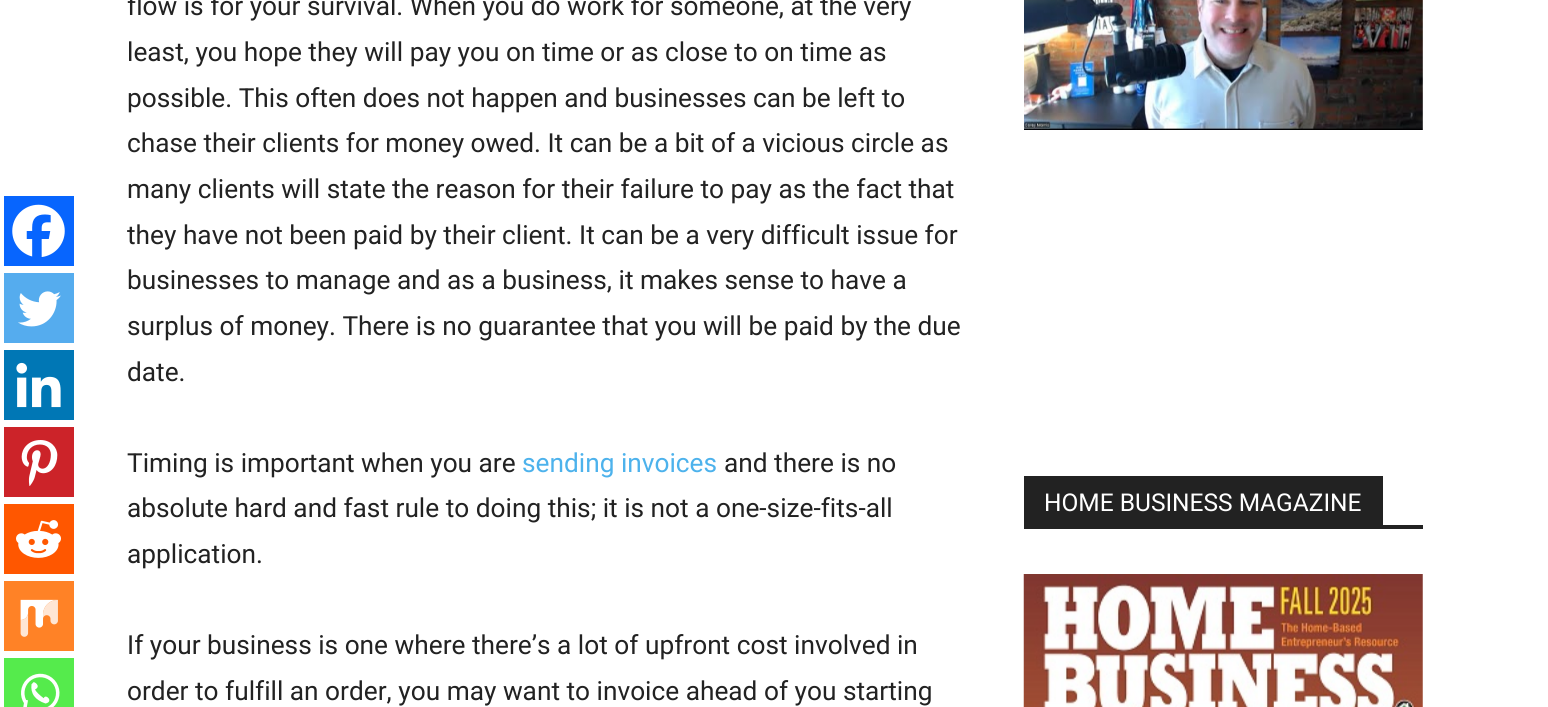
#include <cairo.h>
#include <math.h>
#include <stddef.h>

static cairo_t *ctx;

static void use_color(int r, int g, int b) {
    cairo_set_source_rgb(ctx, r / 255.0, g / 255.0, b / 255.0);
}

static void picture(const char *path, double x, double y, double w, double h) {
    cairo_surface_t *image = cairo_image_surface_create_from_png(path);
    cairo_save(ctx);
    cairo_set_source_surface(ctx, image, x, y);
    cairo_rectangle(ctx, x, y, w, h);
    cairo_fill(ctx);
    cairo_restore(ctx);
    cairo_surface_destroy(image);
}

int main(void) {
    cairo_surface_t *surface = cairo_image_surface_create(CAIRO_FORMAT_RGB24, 1548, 707);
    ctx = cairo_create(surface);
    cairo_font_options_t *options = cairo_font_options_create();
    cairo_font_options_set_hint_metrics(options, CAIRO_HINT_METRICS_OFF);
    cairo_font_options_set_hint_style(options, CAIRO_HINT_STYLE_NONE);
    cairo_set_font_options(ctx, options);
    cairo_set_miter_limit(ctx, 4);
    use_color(255, 255, 255);
    cairo_paint(ctx);
    use_color(7, 101, 254);
    cairo_rectangle(ctx, 4, 196, 70, 70);
    cairo_fill(ctx);
    picture("img1.png", 12, 204, 53, 53);
    use_color(85, 172, 238);
    cairo_rectangle(ctx, 4, 273, 70, 70);
    cairo_fill(ctx);
    picture("img2.png", 18, 291, 43, 36);
    use_color(0, 119, 181);
    cairo_rectangle(ctx, 4, 350, 70, 70);
    cairo_fill(ctx);
    picture("img3.png", 16, 362, 45, 46);
    use_color(204, 35, 41);
    cairo_rectangle(ctx, 4, 427, 70, 70);
    cairo_fill(ctx);
    picture("img4.png", 21, 440, 37, 46);
    use_color(255, 87, 0);
    cairo_rectangle(ctx, 4, 504, 70, 70);
    cairo_fill(ctx);
    picture("img5.png", 16, 520, 45, 38);
    use_color(255, 130, 38);
    cairo_rectangle(ctx, 4, 581, 70, 70);
    cairo_fill(ctx);
    picture("img6.png", 20, 599, 38, 38);
    use_color(85, 235, 76);
    cairo_rectangle(ctx, 4, 658, 70, 49);
    cairo_fill(ctx);
    picture("img7.png", 21, 673, 39, 34);
    cairo_select_font_face(ctx, "Roboto", CAIRO_FONT_SLANT_NORMAL, CAIRO_FONT_WEIGHT_NORMAL);
    cairo_set_font_size(ctx, 26.25);
    use_color(34, 34, 34);
    cairo_move_to(ctx, 127, 15);
    cairo_show_text(ctx, "flow is for your survival. When you do work for someone, at the very");
    cairo_move_to(ctx, 127, 61);
    cairo_show_text(ctx, "least, you hope they will pay you on time or as close to on time as");
    cairo_move_to(ctx, 127, 107);
    cairo_show_text(ctx, "possible. This often does not happen and businesses can be left to");
    cairo_move_to(ctx, 127, 152);
    cairo_show_text(ctx, "chase their clients for money owed. It can be a bit of a vicious circle as");
    cairo_move_to(ctx, 127, 198);
    cairo_show_text(ctx, "many clients will state the reason for their failure to pay as the fact that");
    cairo_move_to(ctx, 127, 244);
    cairo_show_text(ctx, "they have not been paid by their client. It can be a very difficult issue for");
    cairo_move_to(ctx, 127, 289);
    cairo_show_text(ctx, "businesses to manage and as a business, it makes sense to have a");
    cairo_move_to(ctx, 127, 335);
    cairo_show_text(ctx, "surplus of money. There is no guarantee that you will be paid by the due");
    cairo_move_to(ctx, 127, 381);
    cairo_show_text(ctx, "date.");
    cairo_move_to(ctx, 127, 472);
    cairo_show_text(ctx, "Timing is important when you are");
    use_color(77, 178, 236);
    cairo_move_to(ctx, 522, 472);
    cairo_show_text(ctx, "sending invoices");
    use_color(34, 34, 34);
    cairo_move_to(ctx, 724, 472);
    cairo_show_text(ctx, "and there is no");
    cairo_move_to(ctx, 127, 517);
    cairo_show_text(ctx, "absolute hard and fast rule to doing this; it is not a one-size-fits-all");
    cairo_move_to(ctx, 127, 563);
    cairo_show_text(ctx, "application.");
    cairo_move_to(ctx, 127, 654);
    cairo_show_text(ctx, "If your business is one where there’s a lot of upfront cost involved in");
    cairo_move_to(ctx, 127, 700);
    cairo_show_text(ctx, "order to fulfill an order, you may want to invoice ahead of you starting");
    picture("img8.png", 1024, 0, 399, 130);
    cairo_rectangle(ctx, 1024, 525, 399, 4);
    cairo_fill(ctx);
    cairo_rectangle(ctx, 1024, 476, 359, 49);
    cairo_fill(ctx);
    cairo_set_font_size(ctx, 24.5);
    use_color(255, 255, 255);
    cairo_move_to(ctx, 1044, 511);
    cairo_show_text(ctx, "HOME BUSINESS MAGAZINE");
    picture("img9.png", 1023, 574, 400, 133);
    cairo_surface_write_to_png(surface, "result.png");
    cairo_font_options_destroy(options);
    cairo_destroy(ctx);
    cairo_surface_destroy(surface);
    return 0;
}
